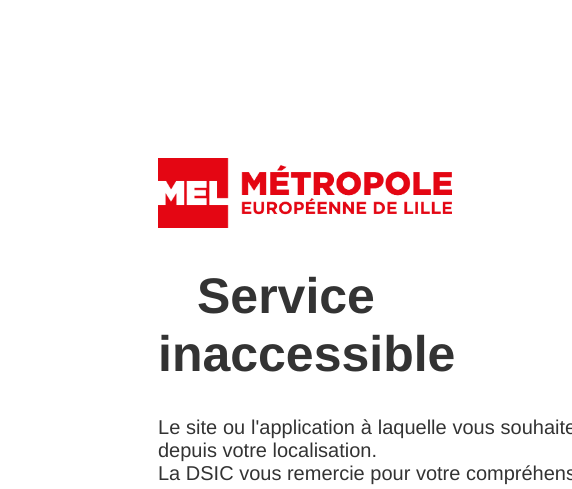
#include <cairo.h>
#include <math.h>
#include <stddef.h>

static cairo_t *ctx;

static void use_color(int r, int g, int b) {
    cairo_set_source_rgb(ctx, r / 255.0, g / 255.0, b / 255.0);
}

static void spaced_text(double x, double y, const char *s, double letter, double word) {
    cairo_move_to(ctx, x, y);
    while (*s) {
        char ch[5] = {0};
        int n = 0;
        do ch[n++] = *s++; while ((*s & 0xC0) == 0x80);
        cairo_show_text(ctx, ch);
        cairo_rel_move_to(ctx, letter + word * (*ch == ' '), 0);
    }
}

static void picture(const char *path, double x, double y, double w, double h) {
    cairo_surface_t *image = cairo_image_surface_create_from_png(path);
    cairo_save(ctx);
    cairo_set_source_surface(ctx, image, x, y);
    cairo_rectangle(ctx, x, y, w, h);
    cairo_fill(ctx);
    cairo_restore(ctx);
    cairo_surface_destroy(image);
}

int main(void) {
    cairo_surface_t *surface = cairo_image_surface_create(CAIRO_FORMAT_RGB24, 572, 489);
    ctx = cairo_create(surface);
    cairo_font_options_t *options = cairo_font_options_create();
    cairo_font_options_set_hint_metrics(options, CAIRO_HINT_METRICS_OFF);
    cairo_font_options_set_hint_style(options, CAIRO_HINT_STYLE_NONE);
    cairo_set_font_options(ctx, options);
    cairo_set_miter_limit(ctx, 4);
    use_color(255, 255, 255);
    cairo_paint(ctx);
    picture("img1.png", 158, 158, 294, 70);
    cairo_select_font_face(ctx, "Liberation Sans", CAIRO_FONT_SLANT_NORMAL, CAIRO_FONT_WEIGHT_BOLD);
    cairo_set_font_size(ctx, 50);
    use_color(51, 51, 51);
    cairo_move_to(ctx, 197, 313);
    cairo_show_text(ctx, "Service");
    cairo_move_to(ctx, 158, 371);
    cairo_show_text(ctx, "inaccessible");
    cairo_select_font_face(ctx, "Liberation Sans", CAIRO_FONT_SLANT_NORMAL, CAIRO_FONT_WEIGHT_NORMAL);
    cairo_set_font_size(ctx, 20);
    spaced_text(158, 434, "Le site ou l'application à laquelle vous souhaite", 0, 0.25);
    cairo_move_to(ctx, 158, 457);
    cairo_show_text(ctx, "depuis votre localisation.");
    cairo_move_to(ctx, 158, 480);
    cairo_show_text(ctx, "La DSIC vous remercie pour votre compréhens");
    cairo_surface_write_to_png(surface, "result.png");
    cairo_font_options_destroy(options);
    cairo_destroy(ctx);
    cairo_surface_destroy(surface);
    return 0;
}
